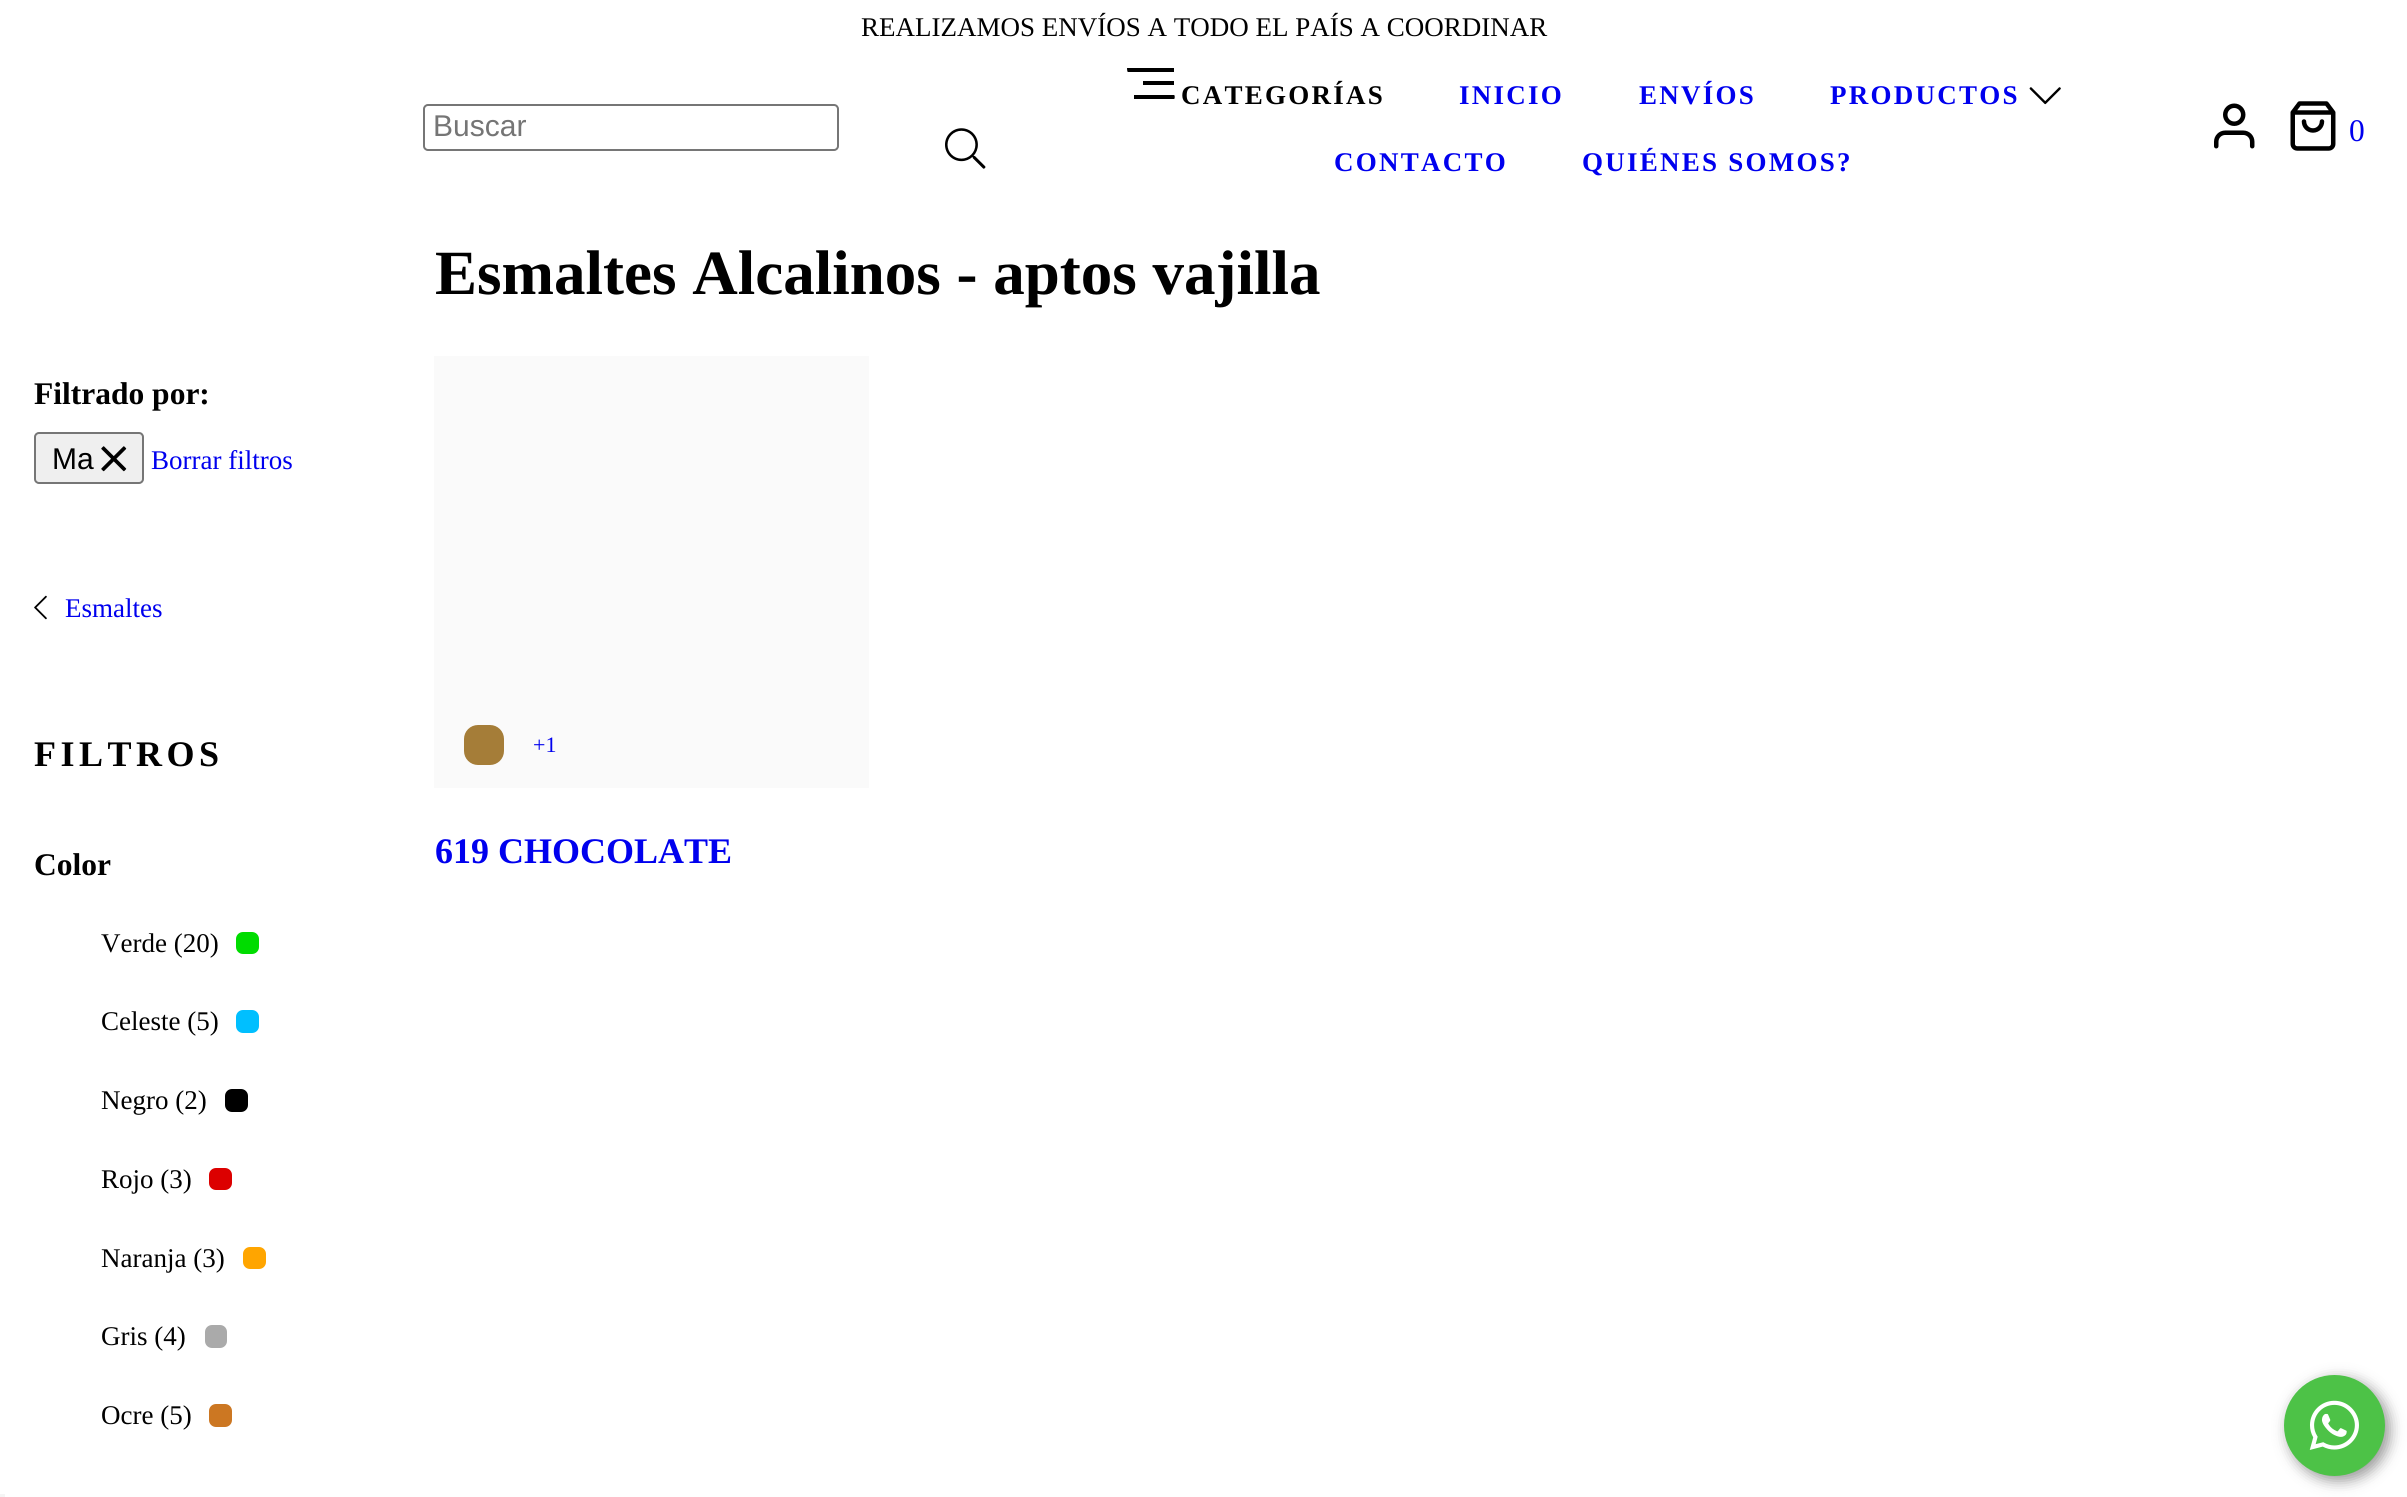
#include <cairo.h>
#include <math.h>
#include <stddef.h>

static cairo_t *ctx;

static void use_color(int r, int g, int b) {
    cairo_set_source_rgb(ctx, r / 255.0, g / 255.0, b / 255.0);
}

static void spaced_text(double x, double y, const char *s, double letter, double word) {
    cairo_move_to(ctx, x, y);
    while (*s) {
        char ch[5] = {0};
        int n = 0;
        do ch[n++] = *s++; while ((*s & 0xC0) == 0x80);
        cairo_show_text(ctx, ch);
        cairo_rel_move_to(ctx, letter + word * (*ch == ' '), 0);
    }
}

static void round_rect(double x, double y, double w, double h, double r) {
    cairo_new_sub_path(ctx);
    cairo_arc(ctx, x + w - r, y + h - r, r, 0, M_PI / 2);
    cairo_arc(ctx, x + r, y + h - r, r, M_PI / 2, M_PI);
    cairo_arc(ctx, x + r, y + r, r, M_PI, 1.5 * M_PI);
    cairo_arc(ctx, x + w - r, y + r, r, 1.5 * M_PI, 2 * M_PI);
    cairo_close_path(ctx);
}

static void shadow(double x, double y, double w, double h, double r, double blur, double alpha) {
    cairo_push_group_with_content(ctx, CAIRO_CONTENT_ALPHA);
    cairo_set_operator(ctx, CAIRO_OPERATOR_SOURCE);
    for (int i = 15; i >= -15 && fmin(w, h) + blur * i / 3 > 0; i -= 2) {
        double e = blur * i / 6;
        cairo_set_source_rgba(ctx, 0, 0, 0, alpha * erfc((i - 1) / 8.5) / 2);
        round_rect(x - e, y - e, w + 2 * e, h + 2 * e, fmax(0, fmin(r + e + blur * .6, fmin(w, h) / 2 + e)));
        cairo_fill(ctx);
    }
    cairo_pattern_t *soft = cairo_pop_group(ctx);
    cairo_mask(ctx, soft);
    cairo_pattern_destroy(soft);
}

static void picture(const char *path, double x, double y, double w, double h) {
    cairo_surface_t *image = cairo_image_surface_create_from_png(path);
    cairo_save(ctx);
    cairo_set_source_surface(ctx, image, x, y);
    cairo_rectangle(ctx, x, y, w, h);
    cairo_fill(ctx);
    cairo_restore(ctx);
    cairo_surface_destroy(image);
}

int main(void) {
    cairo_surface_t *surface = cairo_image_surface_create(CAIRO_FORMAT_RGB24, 2407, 1497);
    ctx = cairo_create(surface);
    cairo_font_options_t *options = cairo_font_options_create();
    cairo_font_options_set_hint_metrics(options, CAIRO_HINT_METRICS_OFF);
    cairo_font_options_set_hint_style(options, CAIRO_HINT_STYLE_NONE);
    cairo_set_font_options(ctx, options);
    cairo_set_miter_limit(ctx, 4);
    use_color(255, 255, 255);
    cairo_paint(ctx);
    cairo_select_font_face(ctx, "Liberation Serif", CAIRO_FONT_SLANT_NORMAL, CAIRO_FONT_WEIGHT_NORMAL);
    cairo_set_font_size(ctx, 27);
    use_color(0, 0, 0);
    cairo_move_to(ctx, 861, 36);
    cairo_show_text(ctx, "REALIZAMOS ENVÍOS A TODO EL PAÍS A COORDINAR");
    round_rect(424, 105, 414, 45, 4);
    use_color(118, 118, 118);
    cairo_stroke(ctx);
    cairo_select_font_face(ctx, "Liberation Sans", CAIRO_FONT_SLANT_NORMAL, CAIRO_FONT_WEIGHT_NORMAL);
    cairo_set_font_size(ctx, 30);
    use_color(117, 117, 117);
    cairo_move_to(ctx, 433, 136);
    cairo_show_text(ctx, "Buscar");
    picture("img1.png", 945, 128, 41, 41);
    use_color(0, 0, 0);
    cairo_new_path(ctx);
    cairo_move_to(ctx, 1174, 72);
    cairo_line_to(ctx, 1128, 72);
    cairo_curve_to(ctx, 1127, 72, 1127, 68, 1127, 68);
    cairo_line_to(ctx, 1174, 68);
    cairo_line_to(ctx, 1174, 71);
    cairo_close_path(ctx);
    cairo_move_to(ctx, 1174, 85);
    cairo_line_to(ctx, 1143, 85);
    cairo_line_to(ctx, 1143, 81);
    cairo_line_to(ctx, 1174, 81);
    cairo_close_path(ctx);
    cairo_move_to(ctx, 1174, 99);
    cairo_line_to(ctx, 1134, 99);
    cairo_line_to(ctx, 1134, 95);
    cairo_line_to(ctx, 1174, 95);
    cairo_curve_to(ctx, 1175, 95, 1175, 99, 1174, 99);
    cairo_close_path(ctx);
    cairo_fill(ctx);
    cairo_select_font_face(ctx, "Liberation Serif", CAIRO_FONT_SLANT_NORMAL, CAIRO_FONT_WEIGHT_BOLD);
    cairo_set_font_size(ctx, 27);
    spaced_text(1181, 104, "CATEGORÍAS", 2.25, 0);
    use_color(0, 0, 238);
    spaced_text(1459, 104, "INICIO", 2.25, 0);
    spaced_text(1639, 104, "ENVÍOS", 2.25, 0);
    spaced_text(1830, 104, "PRODUCTOS", 2.25, 0);
    picture("img2.png", 2029, 87, 32, 18);
    spaced_text(1334, 171, "CONTACTO", 2.25, 0);
    spaced_text(1582, 171, "QUIÉNES SOMOS?", 2.25, 0);
    picture("img3.png", 2214, 103, 41, 46);
    picture("img4.png", 2290, 101, 46, 50);
    cairo_select_font_face(ctx, "Liberation Serif", CAIRO_FONT_SLANT_NORMAL, CAIRO_FONT_WEIGHT_NORMAL);
    cairo_set_font_size(ctx, 31.5);
    cairo_move_to(ctx, 2349, 141);
    cairo_show_text(ctx, "0");
    use_color(245, 245, 245);
    cairo_rectangle(ctx, 0, 1494, 5, 3);
    cairo_fill(ctx);
    cairo_select_font_face(ctx, "Liberation Serif", CAIRO_FONT_SLANT_NORMAL, CAIRO_FONT_WEIGHT_BOLD);
    use_color(0, 0, 0);
    cairo_move_to(ctx, 34, 404);
    cairo_show_text(ctx, "Filtrado por:");
    use_color(239, 239, 239);
    round_rect(35, 433, 108, 50, 4);
    cairo_fill_preserve(ctx);
    use_color(118, 118, 118);
    cairo_stroke(ctx);
    cairo_select_font_face(ctx, "Liberation Sans", CAIRO_FONT_SLANT_NORMAL, CAIRO_FONT_WEIGHT_NORMAL);
    cairo_set_font_size(ctx, 30);
    use_color(0, 0, 0);
    cairo_move_to(ctx, 52, 469);
    cairo_show_text(ctx, "Ma");
    picture("img5.png", 101, 446, 26, 26);
    cairo_select_font_face(ctx, "Liberation Serif", CAIRO_FONT_SLANT_NORMAL, CAIRO_FONT_WEIGHT_NORMAL);
    cairo_set_font_size(ctx, 27);
    use_color(0, 0, 238);
    cairo_move_to(ctx, 151, 469);
    cairo_show_text(ctx, "Borrar filtros");
    picture("img6.png", 34, 595, 13, 25);
    cairo_move_to(ctx, 65, 617);
    cairo_show_text(ctx, "Esmaltes");
    cairo_select_font_face(ctx, "Liberation Serif", CAIRO_FONT_SLANT_NORMAL, CAIRO_FONT_WEIGHT_BOLD);
    cairo_set_font_size(ctx, 36);
    use_color(0, 0, 0);
    spaced_text(34, 766, "FILTROS", 4.5, 0);
    cairo_set_font_size(ctx, 31.5);
    cairo_move_to(ctx, 34, 875);
    cairo_show_text(ctx, "Color");
    cairo_select_font_face(ctx, "Liberation Serif", CAIRO_FONT_SLANT_NORMAL, CAIRO_FONT_WEIGHT_NORMAL);
    cairo_set_font_size(ctx, 27);
    cairo_move_to(ctx, 101, 952);
    cairo_show_text(ctx, "Verde (20)");
    use_color(0, 220, 0);
    round_rect(236, 932, 23, 22, 7);
    cairo_fill(ctx);
    use_color(0, 0, 0);
    cairo_move_to(ctx, 101, 1030);
    cairo_show_text(ctx, "Celeste (5)");
    use_color(0, 191, 255);
    round_rect(236, 1010, 23, 23, 7);
    cairo_fill(ctx);
    use_color(0, 0, 0);
    cairo_move_to(ctx, 101, 1109);
    cairo_show_text(ctx, "Negro (2)");
    round_rect(225, 1089, 23, 23, 7);
    cairo_fill(ctx);
    cairo_move_to(ctx, 101, 1188);
    cairo_show_text(ctx, "Rojo (3)");
    use_color(220, 0, 0);
    round_rect(209, 1168, 23, 22, 7);
    cairo_fill(ctx);
    use_color(0, 0, 0);
    cairo_move_to(ctx, 101, 1267);
    cairo_show_text(ctx, "Naranja (3)");
    use_color(255, 165, 0);
    round_rect(243, 1247, 23, 22, 7);
    cairo_fill(ctx);
    use_color(0, 0, 0);
    cairo_move_to(ctx, 101, 1345);
    cairo_show_text(ctx, "Gris (4)");
    use_color(170, 170, 170);
    round_rect(205, 1325, 22, 23, 7);
    cairo_fill(ctx);
    use_color(0, 0, 0);
    cairo_move_to(ctx, 101, 1424);
    cairo_show_text(ctx, "Ocre (5)");
    use_color(204, 119, 34);
    round_rect(209, 1404, 23, 23, 7);
    cairo_fill(ctx);
    cairo_select_font_face(ctx, "Liberation Serif", CAIRO_FONT_SLANT_NORMAL, CAIRO_FONT_WEIGHT_BOLD);
    cairo_set_font_size(ctx, 63);
    use_color(0, 0, 0);
    cairo_move_to(ctx, 435, 294);
    cairo_show_text(ctx, "Esmaltes Alcalinos - aptos vajilla");
    use_color(250, 250, 250);
    cairo_rectangle(ctx, 434, 356, 435, 432);
    cairo_fill(ctx);
    use_color(165, 125, 56);
    round_rect(464, 725, 40, 40, 14);
    cairo_fill(ctx);
    cairo_select_font_face(ctx, "Liberation Serif", CAIRO_FONT_SLANT_NORMAL, CAIRO_FONT_WEIGHT_NORMAL);
    cairo_set_font_size(ctx, 22);
    use_color(0, 0, 238);
    cairo_move_to(ctx, 533, 752);
    cairo_show_text(ctx, "+1");
    cairo_select_font_face(ctx, "Liberation Serif", CAIRO_FONT_SLANT_NORMAL, CAIRO_FONT_WEIGHT_BOLD);
    cairo_set_font_size(ctx, 36);
    cairo_move_to(ctx, 435, 863);
    cairo_show_text(ctx, "619 CHOCOLATE");
    use_color(0, 0, 0);
    shadow(2288, 1379, 102, 102, 51, 7, 0.4);
    use_color(77, 194, 71);
    cairo_arc(ctx, 2334.5, 1425.5, 50.5, 0, 2 * M_PI);
    cairo_fill(ctx);
    picture("img7.png", 2309, 1400, 50, 50);
    cairo_surface_write_to_png(surface, "result.png");
    cairo_font_options_destroy(options);
    cairo_destroy(ctx);
    cairo_surface_destroy(surface);
    return 0;
}
